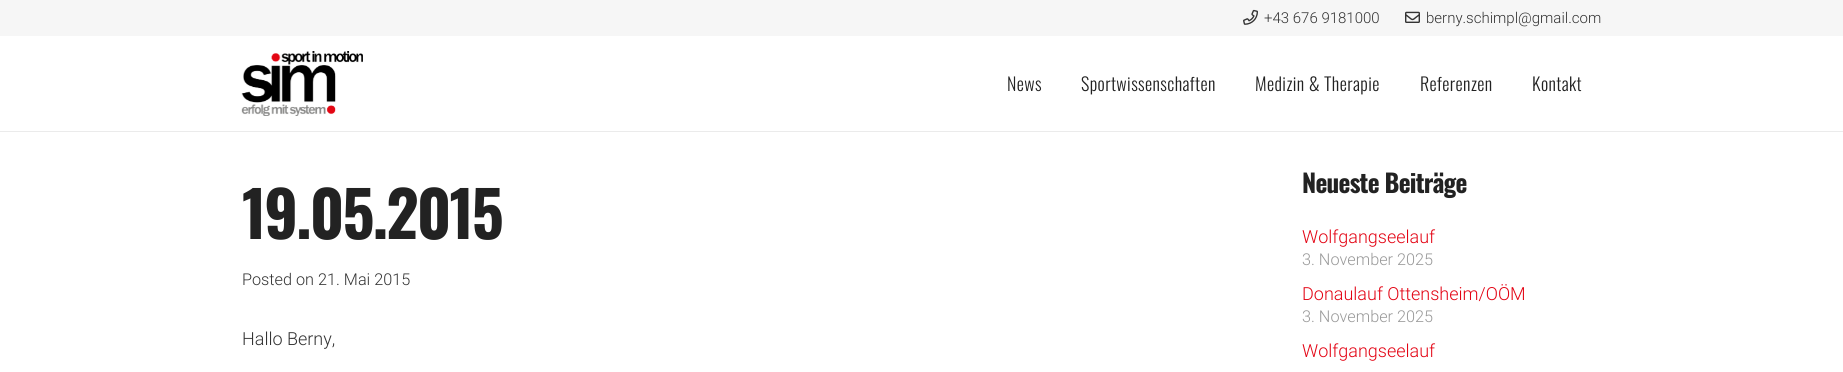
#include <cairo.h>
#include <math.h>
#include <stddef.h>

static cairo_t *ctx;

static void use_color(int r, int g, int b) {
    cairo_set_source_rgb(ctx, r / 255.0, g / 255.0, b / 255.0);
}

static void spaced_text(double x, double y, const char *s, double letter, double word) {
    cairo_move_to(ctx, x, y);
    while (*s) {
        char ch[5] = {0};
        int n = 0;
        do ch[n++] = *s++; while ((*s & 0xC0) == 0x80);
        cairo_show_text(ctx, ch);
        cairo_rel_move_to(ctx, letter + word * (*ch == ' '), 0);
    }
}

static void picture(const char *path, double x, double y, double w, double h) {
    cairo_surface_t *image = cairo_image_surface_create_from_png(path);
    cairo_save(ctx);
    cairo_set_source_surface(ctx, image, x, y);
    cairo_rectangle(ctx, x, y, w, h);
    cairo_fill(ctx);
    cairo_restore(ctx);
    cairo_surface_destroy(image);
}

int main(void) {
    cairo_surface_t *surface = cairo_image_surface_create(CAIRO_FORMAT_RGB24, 1843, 372);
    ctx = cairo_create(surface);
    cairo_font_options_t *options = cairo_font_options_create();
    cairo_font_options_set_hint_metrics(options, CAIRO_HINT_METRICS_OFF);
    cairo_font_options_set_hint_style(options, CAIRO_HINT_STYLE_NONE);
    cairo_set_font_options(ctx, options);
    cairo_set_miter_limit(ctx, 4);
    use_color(255, 255, 255);
    cairo_paint(ctx);
    use_color(246, 246, 246);
    cairo_rectangle(ctx, 0, 0, 1843, 36);
    cairo_fill(ctx);
    picture("img1.png", 1243, 9, 15, 16);
    cairo_select_font_face(ctx, "Roboto Light", CAIRO_FONT_SLANT_NORMAL, CAIRO_FONT_WEIGHT_NORMAL);
    cairo_set_font_size(ctx, 15);
    use_color(51, 51, 51);
    cairo_move_to(ctx, 1264, 23);
    cairo_show_text(ctx, "+43 676 9181000");
    picture("img2.png", 1405, 11, 15, 12);
    cairo_move_to(ctx, 1426, 23);
    cairo_show_text(ctx, "berny.schimpl@gmail.com");
    use_color(235, 235, 235);
    cairo_rectangle(ctx, 0, 131, 1843, 1);
    cairo_fill(ctx);
    picture("img3.png", 241, 51, 122, 65);
    cairo_select_font_face(ctx, "Oswald Light", CAIRO_FONT_SLANT_NORMAL, CAIRO_FONT_WEIGHT_NORMAL);
    cairo_set_font_size(ctx, 18);
    use_color(34, 34, 34);
    spaced_text(1007, 91, "News", 0.4, 0);
    spaced_text(1081, 91, "Sportwissenschaften", 0.4, 0);
    spaced_text(1255, 91, "Medizin & Therapie", 0.4, 0);
    spaced_text(1420, 91, "Referenzen", 0.4, 0);
    spaced_text(1532, 91, "Kontakt", 0.4, 0);
    cairo_select_font_face(ctx, "Oswald", CAIRO_FONT_SLANT_NORMAL, CAIRO_FONT_WEIGHT_BOLD);
    cairo_set_font_size(ctx, 63);
    spaced_text(242, 239, "19.05.2015", -1.9, 0);
    cairo_select_font_face(ctx, "Roboto Light", CAIRO_FONT_SLANT_NORMAL, CAIRO_FONT_WEIGHT_NORMAL);
    cairo_set_font_size(ctx, 16.25);
    use_color(51, 51, 51);
    cairo_move_to(ctx, 242, 285);
    cairo_show_text(ctx, "Posted on 21. Mai 2015");
    cairo_set_font_size(ctx, 18);
    cairo_move_to(ctx, 242, 345);
    cairo_show_text(ctx, "Hallo Berny,");
    cairo_select_font_face(ctx, "Oswald", CAIRO_FONT_SLANT_NORMAL, CAIRO_FONT_WEIGHT_BOLD);
    cairo_set_font_size(ctx, 25.25);
    use_color(34, 34, 34);
    spaced_text(1302, 193, "Neueste Beiträge", -0.75, 0);
    cairo_select_font_face(ctx, "Roboto Light", CAIRO_FONT_SLANT_NORMAL, CAIRO_FONT_WEIGHT_NORMAL);
    cairo_set_font_size(ctx, 18);
    use_color(227, 3, 19);
    cairo_move_to(ctx, 1302, 243);
    cairo_show_text(ctx, "Wolfgangseelauf");
    cairo_set_font_size(ctx, 16.25);
    use_color(153, 153, 153);
    cairo_move_to(ctx, 1302, 265);
    cairo_show_text(ctx, "3. November 2025");
    cairo_set_font_size(ctx, 18);
    use_color(227, 3, 19);
    cairo_move_to(ctx, 1302, 300);
    cairo_show_text(ctx, "Donaulauf Ottensheim/OÖM");
    cairo_set_font_size(ctx, 16.25);
    use_color(153, 153, 153);
    cairo_move_to(ctx, 1302, 322);
    cairo_show_text(ctx, "3. November 2025");
    cairo_set_font_size(ctx, 18);
    use_color(227, 3, 19);
    cairo_move_to(ctx, 1302, 357);
    cairo_show_text(ctx, "Wolfgangseelauf");
    cairo_surface_write_to_png(surface, "result.png");
    cairo_font_options_destroy(options);
    cairo_destroy(ctx);
    cairo_surface_destroy(surface);
    return 0;
}
